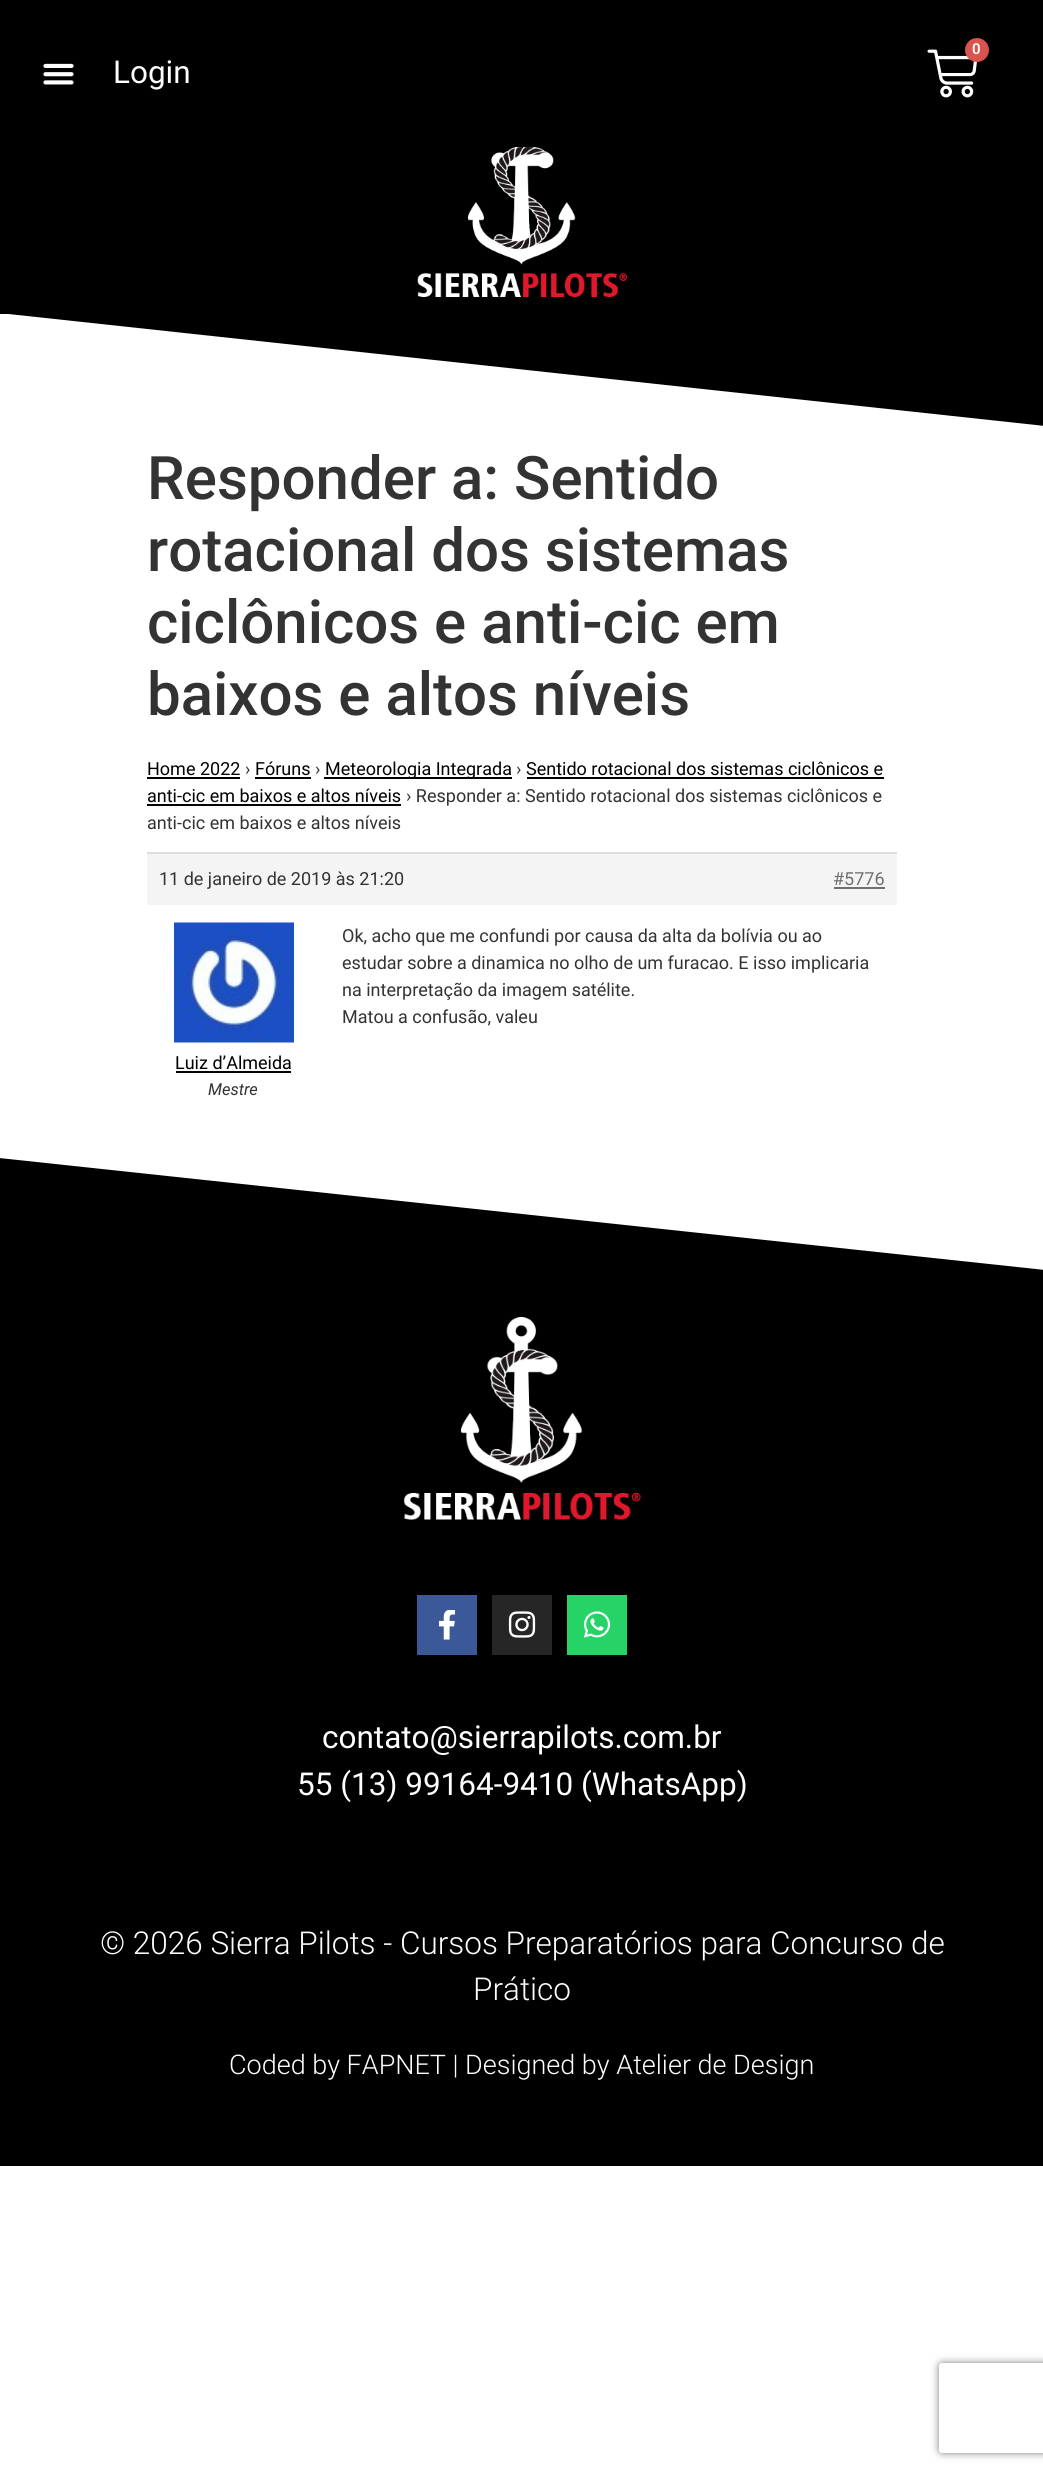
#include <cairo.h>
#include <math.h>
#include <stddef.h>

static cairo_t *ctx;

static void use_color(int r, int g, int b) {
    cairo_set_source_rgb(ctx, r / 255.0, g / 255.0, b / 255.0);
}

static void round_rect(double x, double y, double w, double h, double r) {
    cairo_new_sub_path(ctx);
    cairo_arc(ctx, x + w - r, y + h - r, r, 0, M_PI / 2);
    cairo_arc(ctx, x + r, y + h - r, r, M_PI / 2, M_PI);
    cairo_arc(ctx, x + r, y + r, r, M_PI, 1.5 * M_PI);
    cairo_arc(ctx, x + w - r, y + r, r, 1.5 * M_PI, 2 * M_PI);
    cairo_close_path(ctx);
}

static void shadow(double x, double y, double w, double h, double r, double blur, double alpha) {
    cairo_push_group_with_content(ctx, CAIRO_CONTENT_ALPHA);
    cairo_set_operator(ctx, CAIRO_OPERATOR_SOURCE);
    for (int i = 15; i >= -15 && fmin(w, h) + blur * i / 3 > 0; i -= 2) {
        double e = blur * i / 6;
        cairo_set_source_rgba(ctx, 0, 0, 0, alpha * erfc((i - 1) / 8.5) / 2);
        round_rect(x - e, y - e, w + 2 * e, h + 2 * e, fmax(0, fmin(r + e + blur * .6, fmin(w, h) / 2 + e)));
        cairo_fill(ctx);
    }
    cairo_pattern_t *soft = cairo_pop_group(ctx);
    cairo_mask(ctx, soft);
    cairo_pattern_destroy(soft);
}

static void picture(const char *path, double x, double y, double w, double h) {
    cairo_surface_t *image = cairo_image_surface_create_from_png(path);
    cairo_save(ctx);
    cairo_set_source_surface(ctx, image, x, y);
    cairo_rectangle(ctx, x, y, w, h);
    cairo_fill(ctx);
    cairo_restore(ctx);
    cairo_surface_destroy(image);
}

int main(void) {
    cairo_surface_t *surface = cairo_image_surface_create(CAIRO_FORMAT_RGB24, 1043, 2473);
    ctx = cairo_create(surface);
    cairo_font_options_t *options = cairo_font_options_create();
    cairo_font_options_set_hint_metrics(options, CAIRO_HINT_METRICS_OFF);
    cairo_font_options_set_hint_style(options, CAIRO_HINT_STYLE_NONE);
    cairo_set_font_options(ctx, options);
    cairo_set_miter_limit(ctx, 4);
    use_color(255, 255, 255);
    cairo_paint(ctx);
    use_color(0, 0, 0);
    cairo_rectangle(ctx, 0, 0, 1043, 426);
    cairo_fill(ctx);
    picture("img1.png", 417, 147, 210, 150);
    cairo_save(ctx);
    cairo_rectangle(ctx, 0, 314, 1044, 120);
    cairo_clip(ctx);
    use_color(255, 255, 255);
    cairo_new_path(ctx);
    cairo_move_to(ctx, 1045, 426);
    cairo_line_to(ctx, 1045, 433);
    cairo_line_to(ctx, -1, 433);
    cairo_line_to(ctx, -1, 313);
    cairo_close_path(ctx);
    cairo_fill(ctx);
    cairo_restore(ctx);
    picture("img2.png", 927, 49, 50, 49);
    use_color(217, 83, 79);
    cairo_arc(ctx, 977, 50, 12, 0, 2 * M_PI);
    cairo_fill(ctx);
    cairo_select_font_face(ctx, "Roboto SemiBold", CAIRO_FONT_SLANT_NORMAL, CAIRO_FONT_WEIGHT_NORMAL);
    cairo_set_font_size(ctx, 15);
    use_color(255, 255, 255);
    cairo_move_to(ctx, 972, 54);
    cairo_show_text(ctx, "0");
    picture("img3.png", 43, 63, 31, 22);
    cairo_select_font_face(ctx, "Roboto", CAIRO_FONT_SLANT_NORMAL, CAIRO_FONT_WEIGHT_NORMAL);
    cairo_set_font_size(ctx, 31.5);
    cairo_move_to(ctx, 113, 83);
    cairo_show_text(ctx, "Login");
    cairo_select_font_face(ctx, "Roboto Medium", CAIRO_FONT_SLANT_NORMAL, CAIRO_FONT_WEIGHT_NORMAL);
    cairo_set_font_size(ctx, 60);
    use_color(51, 51, 51);
    cairo_move_to(ctx, 147, 499);
    cairo_show_text(ctx, "Responder a: Sentido");
    cairo_move_to(ctx, 147, 571);
    cairo_show_text(ctx, "rotacional dos sistemas");
    cairo_move_to(ctx, 147, 643);
    cairo_show_text(ctx, "ciclônicos e anti-cic em");
    cairo_move_to(ctx, 147, 715);
    cairo_show_text(ctx, "baixos e altos níveis");
    cairo_select_font_face(ctx, "Roboto", CAIRO_FONT_SLANT_NORMAL, CAIRO_FONT_WEIGHT_NORMAL);
    cairo_set_font_size(ctx, 18);
    use_color(0, 0, 0);
    cairo_move_to(ctx, 147, 775);
    cairo_show_text(ctx, "Home 2022");
    cairo_rectangle(ctx, 147, 777, 93, 2);
    cairo_fill(ctx);
    use_color(51, 51, 51);
    cairo_move_to(ctx, 245, 775);
    cairo_show_text(ctx, "›");
    use_color(0, 0, 0);
    cairo_move_to(ctx, 255, 775);
    cairo_show_text(ctx, "Fóruns");
    cairo_rectangle(ctx, 255, 777, 56, 2);
    cairo_fill(ctx);
    use_color(51, 51, 51);
    cairo_move_to(ctx, 315, 775);
    cairo_show_text(ctx, "›");
    use_color(0, 0, 0);
    cairo_rectangle(ctx, 324, 777, 188, 2);
    cairo_fill(ctx);
    cairo_move_to(ctx, 325, 775);
    cairo_show_text(ctx, "Meteorologia Integrada");
    use_color(51, 51, 51);
    cairo_move_to(ctx, 516, 775);
    cairo_show_text(ctx, "›");
    use_color(0, 0, 0);
    cairo_move_to(ctx, 526, 775);
    cairo_show_text(ctx, "Sentido rotacional dos sistemas ciclônicos e");
    cairo_rectangle(ctx, 527, 777, 357, 2);
    cairo_fill(ctx);
    cairo_move_to(ctx, 147, 802);
    cairo_show_text(ctx, "anti-cic em baixos e altos níveis");
    cairo_rectangle(ctx, 147, 804, 254, 2);
    cairo_fill(ctx);
    use_color(51, 51, 51);
    cairo_move_to(ctx, 406, 802);
    cairo_show_text(ctx, "› Responder a: Sentido rotacional dos sistemas ciclônicos e");
    cairo_move_to(ctx, 147, 829);
    cairo_show_text(ctx, "anti-cic em baixos e altos níveis");
    use_color(244, 244, 244);
    cairo_rectangle(ctx, 147, 854, 750, 51);
    cairo_fill(ctx);
    use_color(221, 221, 221);
    cairo_rectangle(ctx, 147, 852, 750, 2);
    cairo_fill(ctx);
    use_color(51, 51, 51);
    cairo_move_to(ctx, 159, 885);
    cairo_show_text(ctx, "11 de janeiro de 2019 às 21:20");
    use_color(112, 112, 112);
    cairo_move_to(ctx, 833, 885);
    cairo_show_text(ctx, "#5776");
    cairo_rectangle(ctx, 834, 887, 51, 2);
    cairo_fill(ctx);
    use_color(51, 51, 51);
    cairo_move_to(ctx, 342, 942);
    cairo_show_text(ctx, "Ok, acho que me confundi por causa da alta da bolívia ou ao");
    cairo_move_to(ctx, 342, 969);
    cairo_show_text(ctx, "estudar sobre a dinamica no olho de um furacao. E isso implicaria");
    cairo_move_to(ctx, 342, 996);
    cairo_show_text(ctx, "na interpretação da imagem satélite.");
    cairo_move_to(ctx, 342, 1023);
    cairo_show_text(ctx, "Matou a confusão, valeu");
    picture("img4.png", 174, 922, 120, 121);
    use_color(0, 0, 0);
    cairo_move_to(ctx, 175, 1069);
    cairo_show_text(ctx, "Luiz d’Almeida");
    cairo_rectangle(ctx, 176, 1071, 115, 2);
    cairo_fill(ctx);
    cairo_select_font_face(ctx, "Roboto", CAIRO_FONT_SLANT_ITALIC, CAIRO_FONT_WEIGHT_NORMAL);
    cairo_set_font_size(ctx, 16.5);
    use_color(51, 51, 51);
    cairo_move_to(ctx, 208, 1095);
    cairo_show_text(ctx, "Mestre");
    use_color(0, 0, 0);
    cairo_rectangle(ctx, 0, 1158, 1043, 1008);
    cairo_fill(ctx);
    cairo_save(ctx);
    cairo_rectangle(ctx, 0, 1151, 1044, 120);
    cairo_clip(ctx);
    use_color(255, 255, 255);
    cairo_new_path(ctx);
    cairo_move_to(ctx, -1, 1158);
    cairo_line_to(ctx, -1, 1150);
    cairo_line_to(ctx, 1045, 1150);
    cairo_line_to(ctx, 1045, 1270);
    cairo_close_path(ctx);
    cairo_fill(ctx);
    cairo_restore(ctx);
    picture("img5.png", 403, 1317, 238, 203);
    use_color(59, 89, 152);
    cairo_rectangle(ctx, 417, 1595, 60, 60);
    cairo_fill(ctx);
    picture("img6.png", 438, 1610, 18, 30);
    use_color(38, 38, 38);
    cairo_rectangle(ctx, 492, 1595, 60, 60);
    cairo_fill(ctx);
    picture("img7.png", 508, 1611, 28, 27);
    use_color(37, 211, 102);
    cairo_rectangle(ctx, 567, 1595, 60, 60);
    cairo_fill(ctx);
    picture("img8.png", 583, 1611, 28, 27);
    cairo_select_font_face(ctx, "Roboto", CAIRO_FONT_SLANT_NORMAL, CAIRO_FONT_WEIGHT_NORMAL);
    cairo_set_font_size(ctx, 31.5);
    use_color(255, 255, 255);
    cairo_move_to(ctx, 322, 1748);
    cairo_show_text(ctx, "contato@sierrapilots.com.br");
    cairo_move_to(ctx, 297, 1795);
    cairo_show_text(ctx, "55 (13) 99164-9410 (WhatsApp)");
    cairo_select_font_face(ctx, "Roboto Light", CAIRO_FONT_SLANT_NORMAL, CAIRO_FONT_WEIGHT_NORMAL);
    cairo_move_to(ctx, 100, 1954);
    cairo_show_text(ctx, "© 2026 Sierra Pilots - Cursos Preparatórios para Concurso de");
    cairo_move_to(ctx, 473, 2000);
    cairo_show_text(ctx, "Prático");
    cairo_set_font_size(ctx, 27);
    cairo_move_to(ctx, 229, 2074);
    cairo_show_text(ctx, "Coded by FAPNET | Designed by Atelier de Design");
    cairo_save(ctx);
    cairo_set_fill_rule(ctx, CAIRO_FILL_RULE_EVEN_ODD);
    cairo_new_path(ctx);
    cairo_move_to(ctx, 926, 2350);
    cairo_line_to(ctx, 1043, 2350);
    cairo_line_to(ctx, 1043, 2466);
    cairo_line_to(ctx, 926, 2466);
    cairo_close_path(ctx);
    cairo_move_to(ctx, 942, 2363);
    cairo_line_to(ctx, 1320, 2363);
    cairo_curve_to(ctx, 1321.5, 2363, 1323, 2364.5, 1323, 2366);
    cairo_line_to(ctx, 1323, 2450);
    cairo_curve_to(ctx, 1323, 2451.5, 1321.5, 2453, 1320, 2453);
    cairo_line_to(ctx, 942, 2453);
    cairo_curve_to(ctx, 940.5, 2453, 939, 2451.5, 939, 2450);
    cairo_line_to(ctx, 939, 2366);
    cairo_curve_to(ctx, 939, 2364.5, 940.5, 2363, 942, 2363);
    cairo_close_path(ctx);
    cairo_clip(ctx);
    use_color(128, 128, 128);
    shadow(939, 2363, 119, 90, 3, 4, 1);
    cairo_restore(ctx);
    cairo_surface_write_to_png(surface, "result.png");
    cairo_font_options_destroy(options);
    cairo_destroy(ctx);
    cairo_surface_destroy(surface);
    return 0;
}
